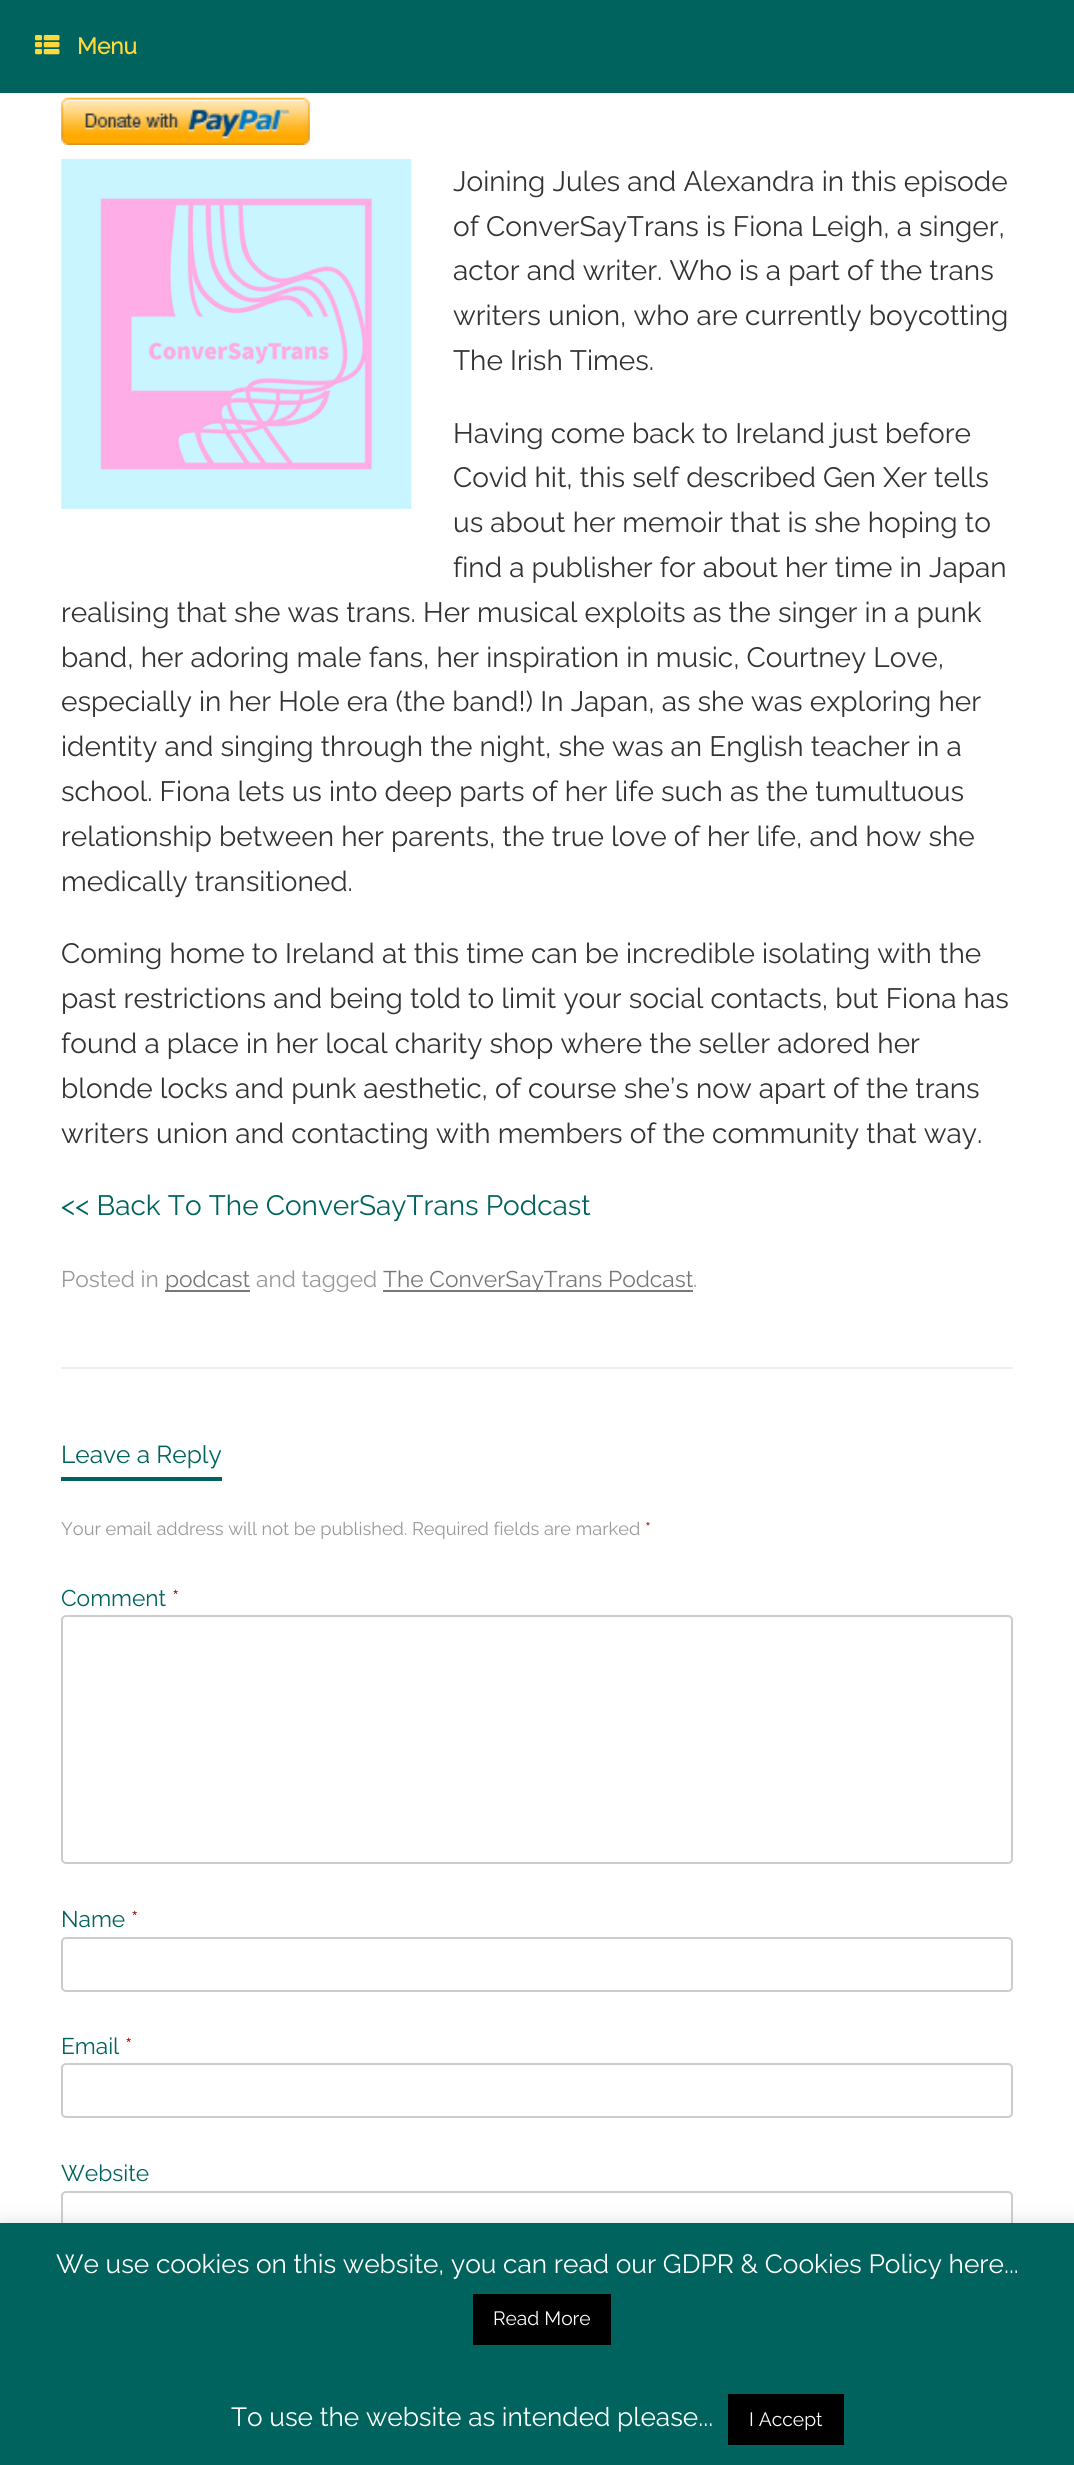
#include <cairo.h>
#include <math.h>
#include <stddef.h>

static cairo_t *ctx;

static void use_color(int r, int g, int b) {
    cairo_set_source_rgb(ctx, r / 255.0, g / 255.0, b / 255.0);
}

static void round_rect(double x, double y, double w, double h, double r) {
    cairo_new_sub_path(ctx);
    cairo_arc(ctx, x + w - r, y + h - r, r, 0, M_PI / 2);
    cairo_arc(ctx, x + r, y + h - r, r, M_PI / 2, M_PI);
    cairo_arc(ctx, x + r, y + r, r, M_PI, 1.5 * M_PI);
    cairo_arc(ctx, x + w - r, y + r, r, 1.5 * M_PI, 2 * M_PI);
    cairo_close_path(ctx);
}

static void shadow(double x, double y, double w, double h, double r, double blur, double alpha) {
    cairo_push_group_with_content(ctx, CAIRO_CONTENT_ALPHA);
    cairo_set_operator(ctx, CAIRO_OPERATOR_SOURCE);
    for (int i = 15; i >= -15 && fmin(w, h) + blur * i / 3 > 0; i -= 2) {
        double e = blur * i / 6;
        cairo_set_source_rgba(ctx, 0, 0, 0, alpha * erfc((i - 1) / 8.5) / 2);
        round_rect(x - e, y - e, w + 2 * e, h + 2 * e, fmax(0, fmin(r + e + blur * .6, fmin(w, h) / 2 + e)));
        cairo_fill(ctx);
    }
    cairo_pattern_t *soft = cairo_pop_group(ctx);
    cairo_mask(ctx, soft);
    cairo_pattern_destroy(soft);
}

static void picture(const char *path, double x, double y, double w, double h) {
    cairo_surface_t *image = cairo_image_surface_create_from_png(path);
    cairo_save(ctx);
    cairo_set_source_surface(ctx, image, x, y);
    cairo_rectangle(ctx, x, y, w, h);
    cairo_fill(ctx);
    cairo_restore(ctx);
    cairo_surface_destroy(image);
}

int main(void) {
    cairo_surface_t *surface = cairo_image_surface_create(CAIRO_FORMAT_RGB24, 1074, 2465);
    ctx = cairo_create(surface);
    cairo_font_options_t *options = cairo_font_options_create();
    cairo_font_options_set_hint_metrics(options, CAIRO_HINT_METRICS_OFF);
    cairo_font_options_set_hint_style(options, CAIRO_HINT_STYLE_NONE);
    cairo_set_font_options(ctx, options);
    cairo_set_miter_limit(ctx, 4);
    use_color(255, 255, 255);
    cairo_paint(ctx);
    use_color(0, 99, 94);
    cairo_rectangle(ctx, 0, 0, 1074, 93);
    cairo_fill(ctx);
    picture("img1.png", 35, 35, 25, 20);
    cairo_select_font_face(ctx, "Raleway", CAIRO_FONT_SLANT_NORMAL, CAIRO_FONT_WEIGHT_BOLD);
    cairo_set_font_size(ctx, 22.75);
    use_color(255, 216, 59);
    cairo_move_to(ctx, 77, 54);
    cairo_show_text(ctx, "Menu");
    use_color(238, 238, 238);
    cairo_rectangle(ctx, 61, 1367, 952, 2);
    cairo_fill(ctx);
    picture("img2.png", 61, 97, 249, 48);
    picture("img3.png", 61, 159, 351, 350);
    cairo_select_font_face(ctx, "Raleway Thin", CAIRO_FONT_SLANT_NORMAL, CAIRO_FONT_WEIGHT_NORMAL);
    cairo_set_font_size(ctx, 28);
    use_color(51, 51, 51);
    cairo_move_to(ctx, 453, 191);
    cairo_show_text(ctx, "Joining Jules and Alexandra in this episode");
    cairo_move_to(ctx, 453, 236);
    cairo_show_text(ctx, "of ConverSayTrans is Fiona Leigh, a singer,");
    cairo_move_to(ctx, 453, 280);
    cairo_show_text(ctx, "actor and writer. Who is a part of the trans");
    cairo_move_to(ctx, 453, 325);
    cairo_show_text(ctx, "writers union, who are currently boycotting");
    cairo_move_to(ctx, 453, 370);
    cairo_show_text(ctx, "The Irish Times.");
    cairo_move_to(ctx, 453, 443);
    cairo_show_text(ctx, "Having come back to Ireland just before");
    cairo_move_to(ctx, 453, 487);
    cairo_show_text(ctx, "Covid hit, this self described Gen Xer tells");
    cairo_move_to(ctx, 453, 532);
    cairo_show_text(ctx, "us about her memoir that is she hoping to");
    cairo_move_to(ctx, 453, 577);
    cairo_show_text(ctx, "find a publisher for about her time in Japan");
    cairo_move_to(ctx, 61, 622);
    cairo_show_text(ctx, "realising that she was trans. Her musical exploits as the singer in a punk");
    cairo_move_to(ctx, 61, 667);
    cairo_show_text(ctx, "band, her adoring male fans, her inspiration in music, Courtney Love,");
    cairo_move_to(ctx, 61, 711);
    cairo_show_text(ctx, "especially in her Hole era (the band!) In Japan, as she was exploring her");
    cairo_move_to(ctx, 61, 756);
    cairo_show_text(ctx, "identity and singing through the night, she was an English teacher in a");
    cairo_move_to(ctx, 61, 801);
    cairo_show_text(ctx, "school. Fiona lets us into deep parts of her life such as the tumultuous");
    cairo_move_to(ctx, 61, 846);
    cairo_show_text(ctx, "relationship between her parents, the true love of her life, and how she");
    cairo_move_to(ctx, 61, 891);
    cairo_show_text(ctx, "medically transitioned.");
    cairo_move_to(ctx, 61, 963);
    cairo_show_text(ctx, "Coming home to Ireland at this time can be incredible isolating with the");
    cairo_move_to(ctx, 61, 1008);
    cairo_show_text(ctx, "past restrictions and being told to limit your social contacts, but Fiona has");
    cairo_move_to(ctx, 61, 1053);
    cairo_show_text(ctx, "found a place in her local charity shop where the seller adored her");
    cairo_move_to(ctx, 61, 1098);
    cairo_show_text(ctx, "blonde locks and punk aesthetic, of course she’s now apart of the trans");
    cairo_move_to(ctx, 61, 1143);
    cairo_show_text(ctx, "writers union and contacting with members of the community that way.");
    use_color(0, 99, 93);
    cairo_move_to(ctx, 61, 1215);
    cairo_show_text(ctx, "<< Back To The ConverSayTrans Podcast");
    cairo_set_font_size(ctx, 22.75);
    use_color(153, 153, 153);
    cairo_move_to(ctx, 61, 1287);
    cairo_show_text(ctx, "Posted in");
    use_color(119, 119, 119);
    cairo_rectangle(ctx, 165, 1290, 85, 2);
    cairo_fill(ctx);
    cairo_move_to(ctx, 165, 1287);
    cairo_show_text(ctx, "podcast");
    use_color(153, 153, 153);
    cairo_move_to(ctx, 256, 1287);
    cairo_show_text(ctx, "and tagged");
    use_color(119, 119, 119);
    cairo_rectangle(ctx, 383, 1290, 310, 2);
    cairo_fill(ctx);
    cairo_move_to(ctx, 383, 1287);
    cairo_show_text(ctx, "The ConverSayTrans Podcast");
    use_color(153, 153, 153);
    cairo_move_to(ctx, 693, 1287);
    cairo_show_text(ctx, ".");
    use_color(0, 99, 93);
    cairo_rectangle(ctx, 61, 1477, 161, 4);
    cairo_fill(ctx);
    cairo_set_font_size(ctx, 24.5);
    cairo_move_to(ctx, 61, 1463);
    cairo_show_text(ctx, "Leave a Reply");
    cairo_set_font_size(ctx, 18.2);
    use_color(153, 153, 153);
    cairo_move_to(ctx, 61, 1535);
    cairo_show_text(ctx, "Your email address will not be published. Required fields are marked");
    use_color(164, 8, 2);
    cairo_move_to(ctx, 645, 1535);
    cairo_show_text(ctx, "*");
    cairo_set_font_size(ctx, 22.75);
    use_color(0, 99, 93);
    cairo_move_to(ctx, 61, 1606);
    cairo_show_text(ctx, "Comment");
    use_color(164, 8, 2);
    cairo_move_to(ctx, 172, 1606);
    cairo_show_text(ctx, "*");
    round_rect(62, 1616, 950, 247, 4);
    use_color(204, 204, 204);
    cairo_stroke(ctx);
    use_color(0, 99, 93);
    cairo_move_to(ctx, 61, 1927);
    cairo_show_text(ctx, "Name");
    use_color(164, 8, 2);
    cairo_move_to(ctx, 131, 1927);
    cairo_show_text(ctx, "*");
    round_rect(62, 1938, 950, 53, 4);
    use_color(204, 204, 204);
    cairo_stroke(ctx);
    use_color(0, 99, 93);
    cairo_move_to(ctx, 61, 2054);
    cairo_show_text(ctx, "Email");
    use_color(164, 8, 2);
    cairo_move_to(ctx, 125, 2054);
    cairo_show_text(ctx, "*");
    round_rect(62, 2064, 950, 53, 4);
    use_color(204, 204, 204);
    cairo_stroke(ctx);
    use_color(0, 99, 93);
    cairo_move_to(ctx, 61, 2181);
    cairo_show_text(ctx, "Website");
    round_rect(62, 2192, 950, 52, 4);
    use_color(204, 204, 204);
    cairo_stroke(ctx);
    use_color(172, 171, 171);
    shadow(0, 2221, 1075, 243, 0, 9, 0.3);
    use_color(0, 99, 93);
    cairo_rectangle(ctx, 0, 2223, 1074, 242);
    cairo_fill(ctx);
    cairo_set_font_size(ctx, 26.25);
    use_color(255, 255, 255);
    cairo_move_to(ctx, 56, 2273);
    cairo_show_text(ctx, "We use cookies on this website, you can read our GDPR & Cookies Policy here...");
    use_color(0, 0, 0);
    cairo_rectangle(ctx, 473, 2294, 138, 51);
    cairo_fill(ctx);
    cairo_set_font_size(ctx, 19.25);
    use_color(255, 255, 255);
    cairo_move_to(ctx, 493, 2325);
    cairo_show_text(ctx, "Read More");
    cairo_set_font_size(ctx, 26.25);
    cairo_move_to(ctx, 231, 2426);
    cairo_show_text(ctx, "To use the website as intended please...");
    use_color(0, 0, 0);
    cairo_rectangle(ctx, 728, 2394, 116, 51);
    cairo_fill(ctx);
    cairo_set_font_size(ctx, 19.25);
    use_color(255, 255, 255);
    cairo_move_to(ctx, 749, 2426);
    cairo_show_text(ctx, "I Accept");
    cairo_surface_write_to_png(surface, "result.png");
    cairo_font_options_destroy(options);
    cairo_destroy(ctx);
    cairo_surface_destroy(surface);
    return 0;
}
